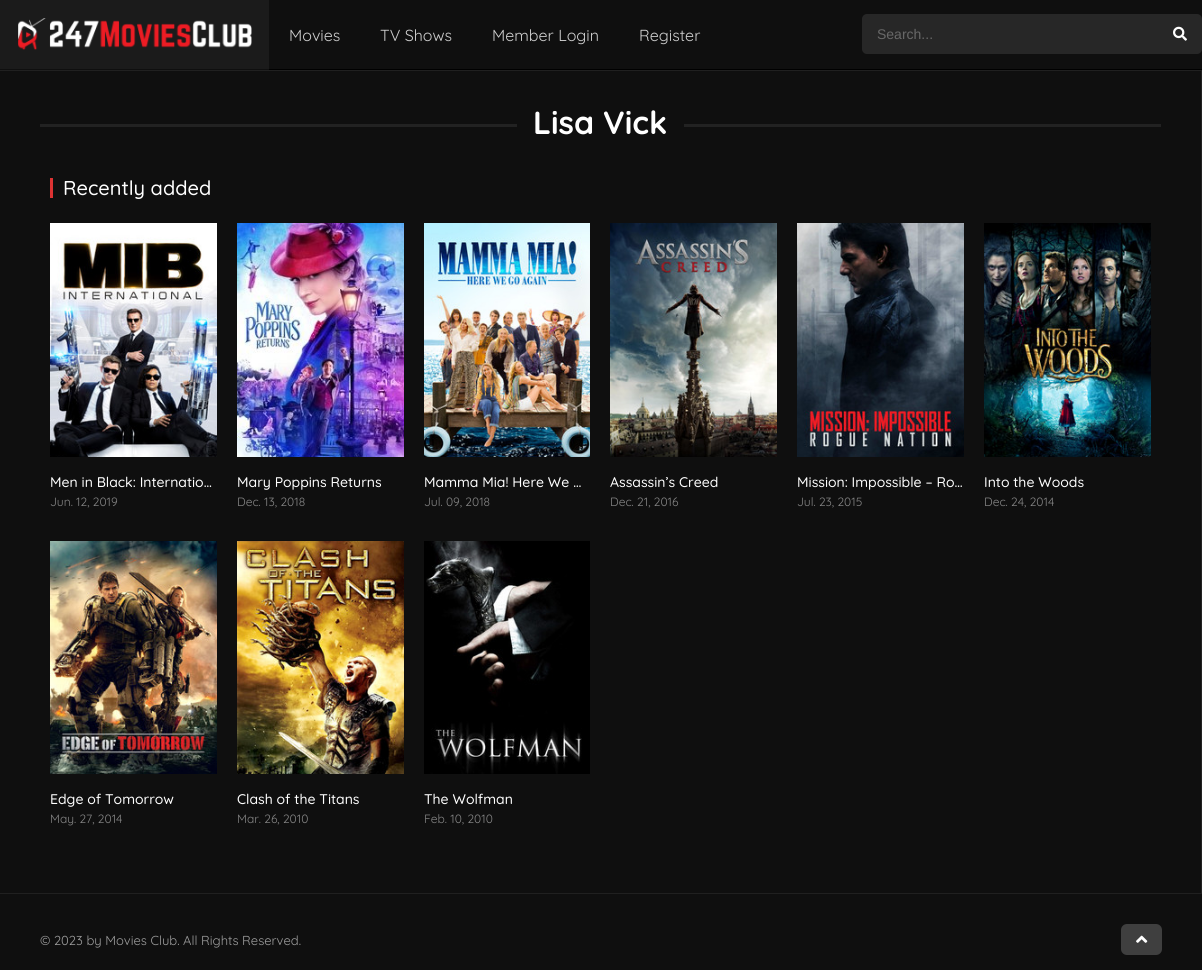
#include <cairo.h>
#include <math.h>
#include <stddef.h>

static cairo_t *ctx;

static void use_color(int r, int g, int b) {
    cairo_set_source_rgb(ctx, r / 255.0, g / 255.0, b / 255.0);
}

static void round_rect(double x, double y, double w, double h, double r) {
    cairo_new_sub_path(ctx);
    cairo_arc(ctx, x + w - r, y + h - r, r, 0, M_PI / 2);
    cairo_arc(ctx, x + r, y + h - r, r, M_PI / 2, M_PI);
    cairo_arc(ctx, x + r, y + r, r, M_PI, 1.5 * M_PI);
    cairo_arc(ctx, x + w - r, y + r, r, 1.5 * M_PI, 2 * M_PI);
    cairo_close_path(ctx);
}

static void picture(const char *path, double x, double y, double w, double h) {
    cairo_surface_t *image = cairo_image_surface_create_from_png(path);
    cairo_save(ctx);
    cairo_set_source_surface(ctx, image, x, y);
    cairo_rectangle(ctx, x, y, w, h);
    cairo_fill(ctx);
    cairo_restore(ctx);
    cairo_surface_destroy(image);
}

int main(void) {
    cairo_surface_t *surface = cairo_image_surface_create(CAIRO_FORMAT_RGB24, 1202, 970);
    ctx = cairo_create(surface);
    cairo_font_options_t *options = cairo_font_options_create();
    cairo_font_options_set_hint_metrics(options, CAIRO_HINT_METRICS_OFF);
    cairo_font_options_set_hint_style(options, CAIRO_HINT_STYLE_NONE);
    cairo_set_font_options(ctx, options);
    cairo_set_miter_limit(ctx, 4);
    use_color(15, 15, 15);
    cairo_paint(ctx);
    use_color(27, 27, 27);
    cairo_rectangle(ctx, 0, 0, 269, 69);
    cairo_fill(ctx);
    use_color(0, 0, 0);
    cairo_rectangle(ctx, 269, 69, 933, 1);
    cairo_fill(ctx);
    picture("img1.png", 18, 18, 234, 32);
    cairo_select_font_face(ctx, "Quicksand", CAIRO_FONT_SLANT_NORMAL, CAIRO_FONT_WEIGHT_NORMAL);
    cairo_set_font_size(ctx, 16);
    use_color(207, 207, 207);
    cairo_move_to(ctx, 289, 41);
    cairo_show_text(ctx, "Movies");
    cairo_move_to(ctx, 380, 41);
    cairo_show_text(ctx, "TV Shows");
    cairo_move_to(ctx, 492, 41);
    cairo_show_text(ctx, "Member Login");
    cairo_move_to(ctx, 639, 41);
    cairo_show_text(ctx, "Register");
    use_color(39, 39, 39);
    round_rect(862, 14, 340, 40, 5);
    cairo_fill(ctx);
    cairo_select_font_face(ctx, "Liberation Sans", CAIRO_FONT_SLANT_NORMAL, CAIRO_FONT_WEIGHT_NORMAL);
    cairo_set_font_size(ctx, 14);
    use_color(104, 104, 104);
    cairo_move_to(ctx, 877, 39);
    cairo_show_text(ctx, "Search...");
    picture("img2.png", 1173, 26, 14, 15);
    use_color(32, 32, 32);
    cairo_rectangle(ctx, 0, 70, 1202, 1);
    cairo_fill(ctx);
    cairo_rectangle(ctx, 0, 893, 1202, 1);
    cairo_fill(ctx);
    use_color(34, 34, 34);
    cairo_rectangle(ctx, 1201, 71, 1, 822);
    cairo_fill(ctx);
    cairo_rectangle(ctx, 40, 124, 477, 3);
    cairo_fill(ctx);
    cairo_select_font_face(ctx, "Quicksand", CAIRO_FONT_SLANT_NORMAL, CAIRO_FONT_WEIGHT_BOLD);
    cairo_set_font_size(ctx, 32);
    use_color(255, 255, 255);
    cairo_move_to(ctx, 533, 134);
    cairo_show_text(ctx, "Lisa Vick");
    use_color(34, 34, 34);
    cairo_rectangle(ctx, 684, 124, 477, 3);
    cairo_fill(ctx);
    use_color(221, 51, 51);
    cairo_rectangle(ctx, 50, 178, 3, 20);
    cairo_fill(ctx);
    cairo_select_font_face(ctx, "Quicksand Medium", CAIRO_FONT_SLANT_NORMAL, CAIRO_FONT_WEIGHT_NORMAL);
    cairo_set_font_size(ctx, 20);
    use_color(255, 255, 255);
    cairo_move_to(ctx, 63, 195);
    cairo_show_text(ctx, "Recently added");
    picture("img3.png", 50, 223, 167, 234);
    cairo_set_font_size(ctx, 14);
    cairo_move_to(ctx, 50, 487);
    cairo_show_text(ctx, "Men in Black: Internatio…");
    cairo_select_font_face(ctx, "Quicksand", CAIRO_FONT_SLANT_NORMAL, CAIRO_FONT_WEIGHT_NORMAL);
    cairo_set_font_size(ctx, 12);
    use_color(135, 135, 135);
    cairo_move_to(ctx, 50, 506);
    cairo_show_text(ctx, "Jun. 12, 2019");
    picture("img4.png", 237, 223, 167, 234);
    cairo_select_font_face(ctx, "Quicksand Medium", CAIRO_FONT_SLANT_NORMAL, CAIRO_FONT_WEIGHT_NORMAL);
    cairo_set_font_size(ctx, 14);
    use_color(255, 255, 255);
    cairo_move_to(ctx, 237, 487);
    cairo_show_text(ctx, "Mary Poppins Returns");
    cairo_select_font_face(ctx, "Quicksand", CAIRO_FONT_SLANT_NORMAL, CAIRO_FONT_WEIGHT_NORMAL);
    cairo_set_font_size(ctx, 12);
    use_color(135, 135, 135);
    cairo_move_to(ctx, 237, 506);
    cairo_show_text(ctx, "Dec. 13, 2018");
    picture("img5.png", 424, 223, 166, 234);
    cairo_select_font_face(ctx, "Quicksand Medium", CAIRO_FONT_SLANT_NORMAL, CAIRO_FONT_WEIGHT_NORMAL);
    cairo_set_font_size(ctx, 14);
    use_color(255, 255, 255);
    cairo_move_to(ctx, 424, 487);
    cairo_show_text(ctx, "Mamma Mia! Here We …");
    cairo_select_font_face(ctx, "Quicksand", CAIRO_FONT_SLANT_NORMAL, CAIRO_FONT_WEIGHT_NORMAL);
    cairo_set_font_size(ctx, 12);
    use_color(135, 135, 135);
    cairo_move_to(ctx, 424, 506);
    cairo_show_text(ctx, "Jul. 09, 2018");
    picture("img6.png", 610, 223, 167, 234);
    cairo_select_font_face(ctx, "Quicksand Medium", CAIRO_FONT_SLANT_NORMAL, CAIRO_FONT_WEIGHT_NORMAL);
    cairo_set_font_size(ctx, 14);
    use_color(255, 255, 255);
    cairo_move_to(ctx, 610, 487);
    cairo_show_text(ctx, "Assassin’s Creed");
    cairo_select_font_face(ctx, "Quicksand", CAIRO_FONT_SLANT_NORMAL, CAIRO_FONT_WEIGHT_NORMAL);
    cairo_set_font_size(ctx, 12);
    use_color(135, 135, 135);
    cairo_move_to(ctx, 610, 506);
    cairo_show_text(ctx, "Dec. 21, 2016");
    picture("img7.png", 797, 223, 167, 234);
    cairo_select_font_face(ctx, "Quicksand Medium", CAIRO_FONT_SLANT_NORMAL, CAIRO_FONT_WEIGHT_NORMAL);
    cairo_set_font_size(ctx, 14);
    use_color(255, 255, 255);
    cairo_move_to(ctx, 797, 487);
    cairo_show_text(ctx, "Mission: Impossible – Ro…");
    cairo_select_font_face(ctx, "Quicksand", CAIRO_FONT_SLANT_NORMAL, CAIRO_FONT_WEIGHT_NORMAL);
    cairo_set_font_size(ctx, 12);
    use_color(135, 135, 135);
    cairo_move_to(ctx, 797, 506);
    cairo_show_text(ctx, "Jul. 23, 2015");
    picture("img8.png", 984, 223, 167, 234);
    cairo_select_font_face(ctx, "Quicksand Medium", CAIRO_FONT_SLANT_NORMAL, CAIRO_FONT_WEIGHT_NORMAL);
    cairo_set_font_size(ctx, 14);
    use_color(255, 255, 255);
    cairo_move_to(ctx, 984, 487);
    cairo_show_text(ctx, "Into the Woods");
    cairo_select_font_face(ctx, "Quicksand", CAIRO_FONT_SLANT_NORMAL, CAIRO_FONT_WEIGHT_NORMAL);
    cairo_set_font_size(ctx, 12);
    use_color(135, 135, 135);
    cairo_move_to(ctx, 984, 506);
    cairo_show_text(ctx, "Dec. 24, 2014");
    picture("img9.png", 50, 541, 167, 233);
    cairo_select_font_face(ctx, "Quicksand Medium", CAIRO_FONT_SLANT_NORMAL, CAIRO_FONT_WEIGHT_NORMAL);
    cairo_set_font_size(ctx, 14);
    use_color(255, 255, 255);
    cairo_move_to(ctx, 50, 804);
    cairo_show_text(ctx, "Edge of Tomorrow");
    cairo_select_font_face(ctx, "Quicksand", CAIRO_FONT_SLANT_NORMAL, CAIRO_FONT_WEIGHT_NORMAL);
    cairo_set_font_size(ctx, 12);
    use_color(135, 135, 135);
    cairo_move_to(ctx, 50, 823);
    cairo_show_text(ctx, "May. 27, 2014");
    picture("img10.png", 237, 541, 167, 233);
    cairo_select_font_face(ctx, "Quicksand Medium", CAIRO_FONT_SLANT_NORMAL, CAIRO_FONT_WEIGHT_NORMAL);
    cairo_set_font_size(ctx, 14);
    use_color(255, 255, 255);
    cairo_move_to(ctx, 237, 804);
    cairo_show_text(ctx, "Clash of the Titans");
    cairo_select_font_face(ctx, "Quicksand", CAIRO_FONT_SLANT_NORMAL, CAIRO_FONT_WEIGHT_NORMAL);
    cairo_set_font_size(ctx, 12);
    use_color(135, 135, 135);
    cairo_move_to(ctx, 237, 823);
    cairo_show_text(ctx, "Mar. 26, 2010");
    use_color(0, 0, 0);
    cairo_rectangle(ctx, 424, 541, 166, 233);
    cairo_fill(ctx);
    picture("img11.png", 426, 541, 156, 233);
    cairo_select_font_face(ctx, "Quicksand Medium", CAIRO_FONT_SLANT_NORMAL, CAIRO_FONT_WEIGHT_NORMAL);
    cairo_set_font_size(ctx, 14);
    use_color(255, 255, 255);
    cairo_move_to(ctx, 424, 804);
    cairo_show_text(ctx, "The Wolfman");
    cairo_select_font_face(ctx, "Quicksand", CAIRO_FONT_SLANT_NORMAL, CAIRO_FONT_WEIGHT_NORMAL);
    cairo_set_font_size(ctx, 12);
    use_color(135, 135, 135);
    cairo_move_to(ctx, 424, 823);
    cairo_show_text(ctx, "Feb. 10, 2010");
    cairo_set_font_size(ctx, 13);
    use_color(159, 159, 159);
    cairo_move_to(ctx, 40, 945);
    cairo_show_text(ctx, "© 2023 by Movies Club. All Rights Reserved.");
    use_color(63, 63, 63);
    round_rect(1121, 924, 41, 31, 6);
    cairo_fill(ctx);
    picture("img12.png", 1136, 935, 12, 8);
    cairo_surface_write_to_png(surface, "result.png");
    cairo_font_options_destroy(options);
    cairo_destroy(ctx);
    cairo_surface_destroy(surface);
    return 0;
}
